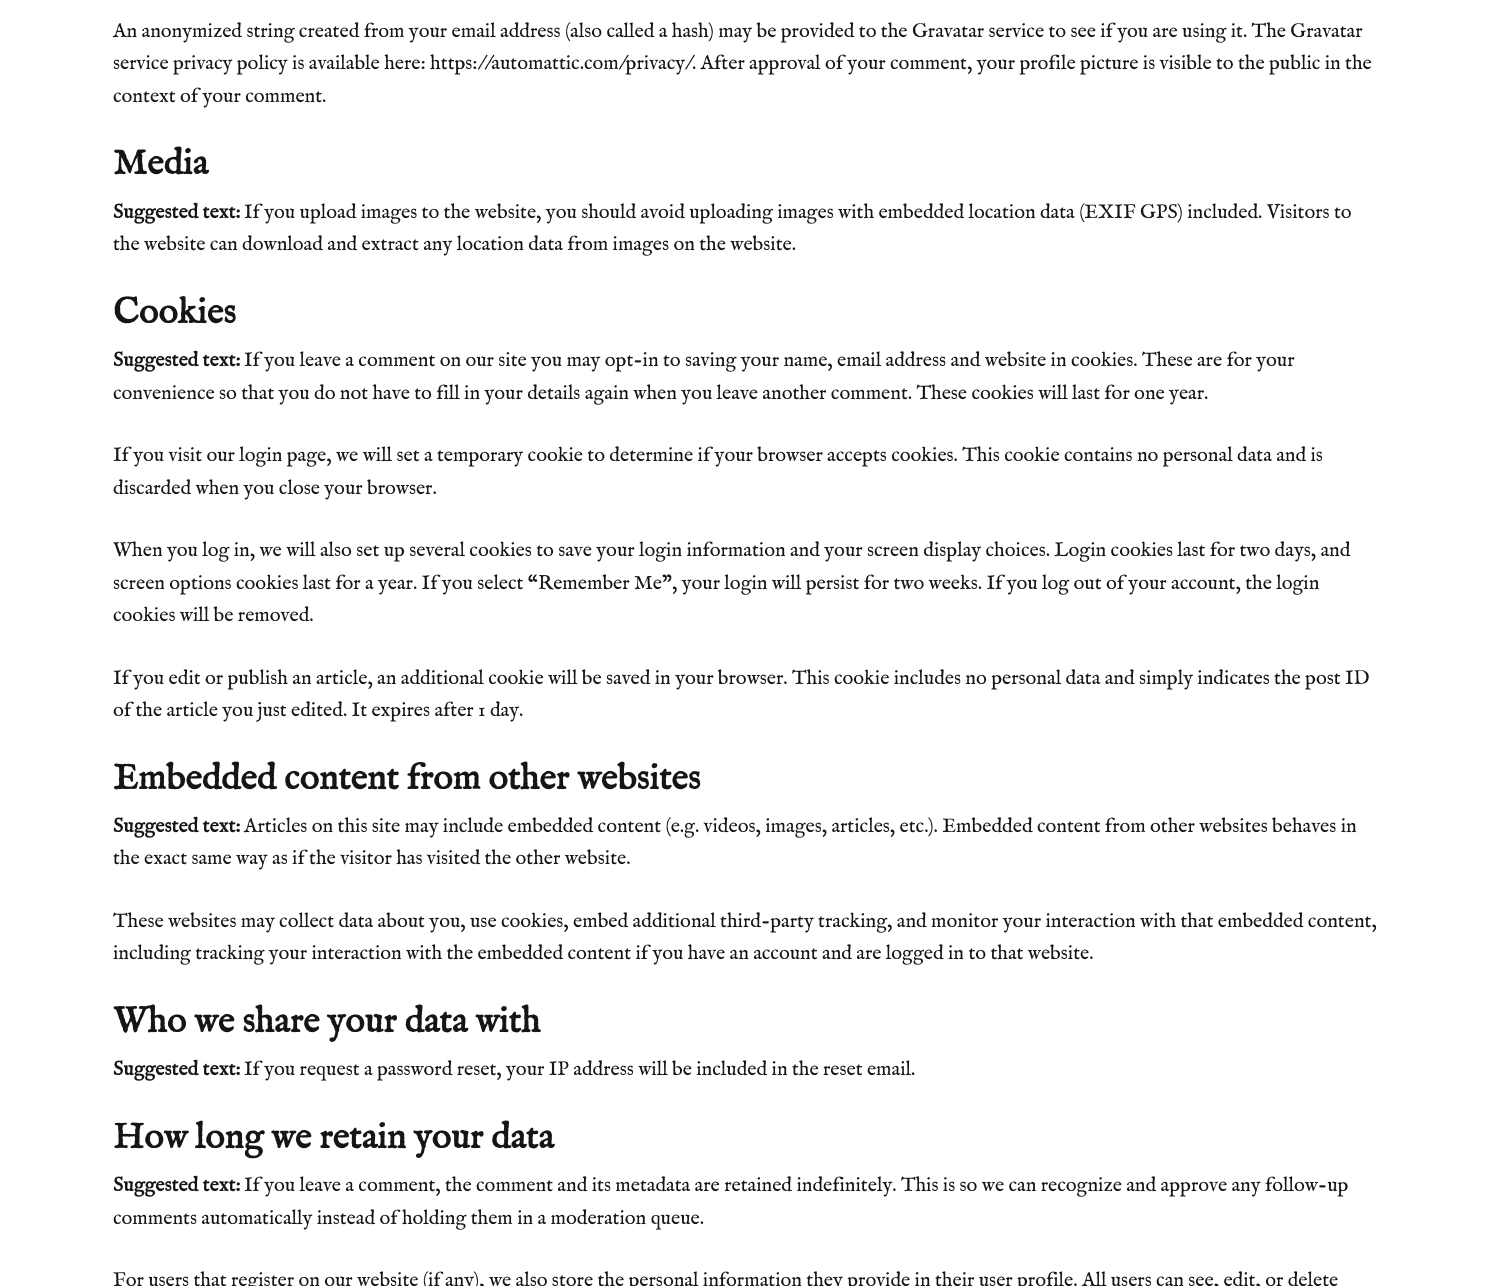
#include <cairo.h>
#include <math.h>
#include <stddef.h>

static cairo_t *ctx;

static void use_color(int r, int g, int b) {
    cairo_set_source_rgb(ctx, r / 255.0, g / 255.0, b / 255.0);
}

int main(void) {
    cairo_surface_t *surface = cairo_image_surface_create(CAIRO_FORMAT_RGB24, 1491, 1286);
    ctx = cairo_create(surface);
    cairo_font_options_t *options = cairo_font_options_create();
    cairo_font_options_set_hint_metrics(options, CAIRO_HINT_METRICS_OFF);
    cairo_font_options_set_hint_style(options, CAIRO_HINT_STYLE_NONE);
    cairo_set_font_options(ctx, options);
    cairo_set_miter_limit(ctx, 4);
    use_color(255, 255, 255);
    cairo_paint(ctx);
    cairo_select_font_face(ctx, "IM FELL English", CAIRO_FONT_SLANT_NORMAL, CAIRO_FONT_WEIGHT_NORMAL);
    cairo_set_font_size(ctx, 20);
    use_color(21, 21, 21);
    cairo_move_to(ctx, 113, 37);
    cairo_show_text(ctx, "An anonymized string created from your email address (also called a hash) may be provided to the Gravatar service to see if you are using it. The Gravatar");
    cairo_move_to(ctx, 113, 69);
    cairo_show_text(ctx, "service privacy policy is available here: https://automattic.com/privacy/. After approval of your comment, your profile picture is visible to the public in the");
    cairo_move_to(ctx, 113, 102);
    cairo_show_text(ctx, "context of your comment.");
    cairo_select_font_face(ctx, "IM FELL English", CAIRO_FONT_SLANT_NORMAL, CAIRO_FONT_WEIGHT_BOLD);
    cairo_set_font_size(ctx, 36.1);
    cairo_move_to(ctx, 113, 174);
    cairo_show_text(ctx, "Media");
    cairo_set_font_size(ctx, 20);
    cairo_move_to(ctx, 113, 218);
    cairo_show_text(ctx, "Suggested text:");
    cairo_select_font_face(ctx, "IM FELL English", CAIRO_FONT_SLANT_NORMAL, CAIRO_FONT_WEIGHT_NORMAL);
    cairo_move_to(ctx, 244, 218);
    cairo_show_text(ctx, "If you upload images to the website, you should avoid uploading images with embedded location data (EXIF GPS) included. Visitors to");
    cairo_move_to(ctx, 113, 250);
    cairo_show_text(ctx, "the website can download and extract any location data from images on the website.");
    cairo_select_font_face(ctx, "IM FELL English", CAIRO_FONT_SLANT_NORMAL, CAIRO_FONT_WEIGHT_BOLD);
    cairo_set_font_size(ctx, 36.1);
    cairo_move_to(ctx, 113, 323);
    cairo_show_text(ctx, "Cookies");
    cairo_set_font_size(ctx, 20);
    cairo_move_to(ctx, 113, 366);
    cairo_show_text(ctx, "Suggested text:");
    cairo_select_font_face(ctx, "IM FELL English", CAIRO_FONT_SLANT_NORMAL, CAIRO_FONT_WEIGHT_NORMAL);
    cairo_move_to(ctx, 244, 366);
    cairo_show_text(ctx, "If you leave a comment on our site you may opt-in to saving your name, email address and website in cookies. These are for your");
    cairo_move_to(ctx, 113, 399);
    cairo_show_text(ctx, "convenience so that you do not have to fill in your details again when you leave another comment. These cookies will last for one year.");
    cairo_move_to(ctx, 113, 461);
    cairo_show_text(ctx, "If you visit our login page, we will set a temporary cookie to determine if your browser accepts cookies. This cookie contains no personal data and is");
    cairo_move_to(ctx, 113, 494);
    cairo_show_text(ctx, "discarded when you close your browser.");
    cairo_move_to(ctx, 113, 556);
    cairo_show_text(ctx, "When you log in, we will also set up several cookies to save your login information and your screen display choices. Login cookies last for two days, and");
    cairo_move_to(ctx, 113, 589);
    cairo_show_text(ctx, "screen options cookies last for a year. If you select “Remember Me”, your login will persist for two weeks. If you log out of your account, the login");
    cairo_move_to(ctx, 113, 621);
    cairo_show_text(ctx, "cookies will be removed.");
    cairo_move_to(ctx, 113, 684);
    cairo_show_text(ctx, "If you edit or publish an article, an additional cookie will be saved in your browser. This cookie includes no personal data and simply indicates the post ID");
    cairo_move_to(ctx, 113, 716);
    cairo_show_text(ctx, "of the article you just edited. It expires after 1 day.");
    cairo_select_font_face(ctx, "IM FELL English", CAIRO_FONT_SLANT_NORMAL, CAIRO_FONT_WEIGHT_BOLD);
    cairo_set_font_size(ctx, 36.1);
    cairo_move_to(ctx, 113, 789);
    cairo_show_text(ctx, "Embedded content from other websites");
    cairo_set_font_size(ctx, 20);
    cairo_move_to(ctx, 113, 832);
    cairo_show_text(ctx, "Suggested text:");
    cairo_select_font_face(ctx, "IM FELL English", CAIRO_FONT_SLANT_NORMAL, CAIRO_FONT_WEIGHT_NORMAL);
    cairo_move_to(ctx, 244, 832);
    cairo_show_text(ctx, "Articles on this site may include embedded content (e.g. videos, images, articles, etc.). Embedded content from other websites behaves in");
    cairo_move_to(ctx, 113, 864);
    cairo_show_text(ctx, "the exact same way as if the visitor has visited the other website.");
    cairo_move_to(ctx, 113, 927);
    cairo_show_text(ctx, "These websites may collect data about you, use cookies, embed additional third-party tracking, and monitor your interaction with that embedded content,");
    cairo_move_to(ctx, 113, 959);
    cairo_show_text(ctx, "including tracking your interaction with the embedded content if you have an account and are logged in to that website.");
    cairo_select_font_face(ctx, "IM FELL English", CAIRO_FONT_SLANT_NORMAL, CAIRO_FONT_WEIGHT_BOLD);
    cairo_set_font_size(ctx, 36.1);
    cairo_move_to(ctx, 113, 1032);
    cairo_show_text(ctx, "Who we share your data with");
    cairo_set_font_size(ctx, 20);
    cairo_move_to(ctx, 113, 1075);
    cairo_show_text(ctx, "Suggested text:");
    cairo_select_font_face(ctx, "IM FELL English", CAIRO_FONT_SLANT_NORMAL, CAIRO_FONT_WEIGHT_NORMAL);
    cairo_move_to(ctx, 244, 1075);
    cairo_show_text(ctx, "If you request a password reset, your IP address will be included in the reset email.");
    cairo_select_font_face(ctx, "IM FELL English", CAIRO_FONT_SLANT_NORMAL, CAIRO_FONT_WEIGHT_BOLD);
    cairo_set_font_size(ctx, 36.1);
    cairo_move_to(ctx, 113, 1148);
    cairo_show_text(ctx, "How long we retain your data");
    cairo_set_font_size(ctx, 20);
    cairo_move_to(ctx, 113, 1191);
    cairo_show_text(ctx, "Suggested text:");
    cairo_select_font_face(ctx, "IM FELL English", CAIRO_FONT_SLANT_NORMAL, CAIRO_FONT_WEIGHT_NORMAL);
    cairo_move_to(ctx, 244, 1191);
    cairo_show_text(ctx, "If you leave a comment, the comment and its metadata are retained indefinitely. This is so we can recognize and approve any follow-up");
    cairo_move_to(ctx, 113, 1224);
    cairo_show_text(ctx, "comments automatically instead of holding them in a moderation queue.");
    cairo_move_to(ctx, 113, 1286);
    cairo_show_text(ctx, "For users that register on our website (if any), we also store the personal information they provide in their user profile. All users can see, edit, or delete");
    cairo_surface_write_to_png(surface, "result.png");
    cairo_font_options_destroy(options);
    cairo_destroy(ctx);
    cairo_surface_destroy(surface);
    return 0;
}
